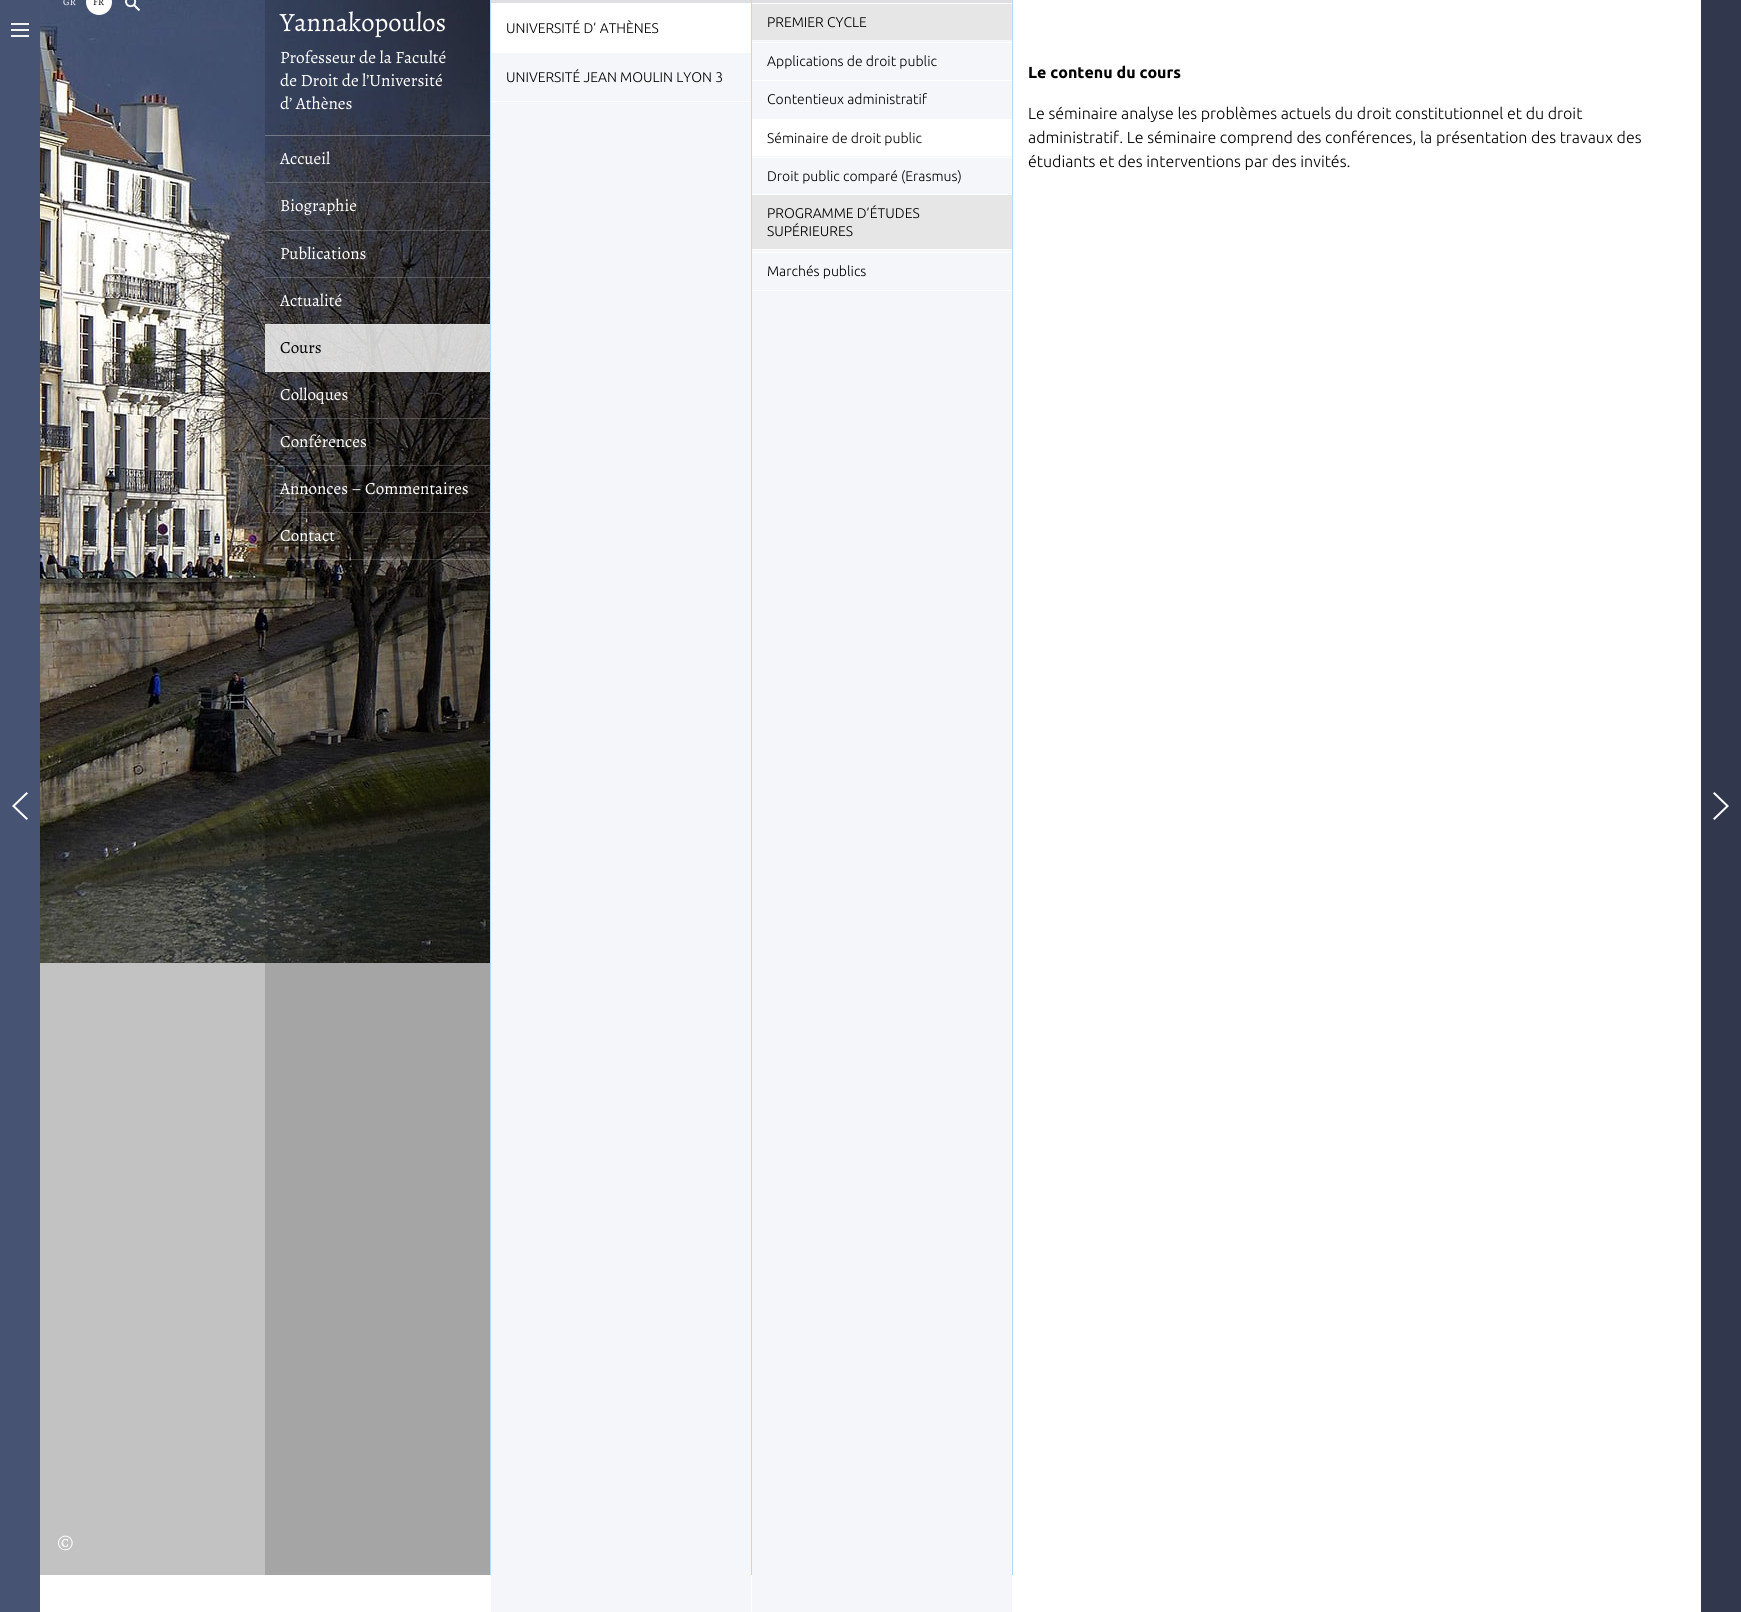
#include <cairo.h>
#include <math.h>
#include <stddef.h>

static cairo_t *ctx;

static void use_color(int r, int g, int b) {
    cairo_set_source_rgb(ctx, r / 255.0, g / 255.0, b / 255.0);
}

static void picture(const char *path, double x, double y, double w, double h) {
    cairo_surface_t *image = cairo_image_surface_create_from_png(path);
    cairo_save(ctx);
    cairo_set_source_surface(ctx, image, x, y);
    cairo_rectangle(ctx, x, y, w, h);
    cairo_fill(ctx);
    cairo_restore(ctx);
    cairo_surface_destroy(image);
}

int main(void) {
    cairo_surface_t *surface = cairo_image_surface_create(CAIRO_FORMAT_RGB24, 1741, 1612);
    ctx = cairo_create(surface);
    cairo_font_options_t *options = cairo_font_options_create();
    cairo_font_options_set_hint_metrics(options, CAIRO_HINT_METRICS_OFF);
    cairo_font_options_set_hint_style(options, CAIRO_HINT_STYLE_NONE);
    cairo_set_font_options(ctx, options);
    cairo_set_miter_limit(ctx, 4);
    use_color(255, 255, 255);
    cairo_paint(ctx);
    use_color(70, 83, 115);
    cairo_rectangle(ctx, 0, 0, 40, 1612);
    cairo_fill(ctx);
    use_color(49, 55, 77);
    cairo_rectangle(ctx, 1701, 0, 40, 1612);
    cairo_fill(ctx);
    picture("img1.png", 1713, 792, 16, 28);
    use_color(242, 242, 242);
    cairo_rectangle(ctx, 11, 23, 18, 2);
    cairo_fill(ctx);
    cairo_rectangle(ctx, 11, 35, 18, 2);
    cairo_fill(ctx);
    cairo_rectangle(ctx, 11, 29, 18, 2);
    cairo_fill(ctx);
    picture("img2.png", 12, 792, 16, 28);
    use_color(194, 194, 194);
    cairo_rectangle(ctx, 40, 963, 450, 612);
    cairo_fill(ctx);
    picture("img3.png", 40, 0, 450, 963);
    cairo_select_font_face(ctx, "Alegreya", CAIRO_FONT_SLANT_NORMAL, CAIRO_FONT_WEIGHT_NORMAL);
    cairo_set_font_size(ctx, 10);
    use_color(255, 255, 255);
    cairo_move_to(ctx, 63, 5);
    cairo_show_text(ctx, "GR");
    cairo_new_path(ctx);
    cairo_arc(ctx, 99, 2, 13, 0, 2 * M_PI);
    cairo_fill(ctx);
    use_color(0, 0, 0);
    cairo_move_to(ctx, 93, 5);
    cairo_show_text(ctx, "FR");
    picture("img4.png", 125, 0, 15, 11);
    cairo_set_font_size(ctx, 24);
    use_color(255, 255, 255);
    cairo_move_to(ctx, 57, 1550);
    cairo_show_text(ctx, "©");
    cairo_set_source_rgba(ctx, 0, 0, 0, 0.15);
    cairo_rectangle(ctx, 265, 0, 225, 1575);
    cairo_fill(ctx);
    cairo_set_font_size(ctx, 26.5);
    use_color(255, 255, 255);
    cairo_move_to(ctx, 280, 31);
    cairo_show_text(ctx, "Yannakopoulos");
    cairo_set_font_size(ctx, 17.25);
    cairo_move_to(ctx, 280, 63);
    cairo_show_text(ctx, "Professeur de la Faculté");
    cairo_move_to(ctx, 280, 86);
    cairo_show_text(ctx, "de Droit de l’Université");
    cairo_move_to(ctx, 280, 109);
    cairo_show_text(ctx, "d’ Athènes");
    cairo_set_source_rgba(ctx, 1, 1, 1, 0.3);
    cairo_rectangle(ctx, 265, 135, 225, 1);
    cairo_fill(ctx);
    cairo_set_source_rgba(ctx, 1, 1, 1, 0.2);
    cairo_rectangle(ctx, 265, 182, 225, 1);
    cairo_fill(ctx);
    cairo_set_font_size(ctx, 17);
    use_color(255, 255, 255);
    cairo_move_to(ctx, 280, 164);
    cairo_show_text(ctx, "Accueil");
    cairo_set_source_rgba(ctx, 1, 1, 1, 0.2);
    cairo_rectangle(ctx, 265, 230, 225, 1);
    cairo_fill(ctx);
    use_color(255, 255, 255);
    cairo_move_to(ctx, 280, 211);
    cairo_show_text(ctx, "Biographie");
    cairo_set_source_rgba(ctx, 1, 1, 1, 0.2);
    cairo_rectangle(ctx, 265, 277, 225, 1);
    cairo_fill(ctx);
    use_color(255, 255, 255);
    cairo_move_to(ctx, 280, 259);
    cairo_show_text(ctx, "Publications");
    cairo_set_source_rgba(ctx, 1, 1, 1, 0.2);
    cairo_rectangle(ctx, 265, 324, 225, 1);
    cairo_fill(ctx);
    use_color(255, 255, 255);
    cairo_move_to(ctx, 280, 306);
    cairo_show_text(ctx, "Αctualité");
    cairo_set_source_rgba(ctx, 1, 1, 1, 0.8);
    cairo_rectangle(ctx, 265, 324, 225, 48);
    cairo_fill(ctx);
    cairo_set_source_rgba(ctx, 1, 1, 1, 0.2);
    cairo_rectangle(ctx, 265, 371, 225, 1);
    cairo_fill(ctx);
    use_color(0, 0, 0);
    cairo_move_to(ctx, 280, 353);
    cairo_show_text(ctx, "Cours");
    cairo_set_source_rgba(ctx, 1, 1, 1, 0.2);
    cairo_rectangle(ctx, 265, 418, 225, 1);
    cairo_fill(ctx);
    use_color(255, 255, 255);
    cairo_move_to(ctx, 280, 400);
    cairo_show_text(ctx, "Colloques");
    cairo_set_source_rgba(ctx, 1, 1, 1, 0.2);
    cairo_rectangle(ctx, 265, 465, 225, 1);
    cairo_fill(ctx);
    use_color(255, 255, 255);
    cairo_move_to(ctx, 280, 447);
    cairo_show_text(ctx, "Conférences");
    cairo_set_source_rgba(ctx, 1, 1, 1, 0.2);
    cairo_rectangle(ctx, 265, 512, 225, 1);
    cairo_fill(ctx);
    use_color(255, 255, 255);
    cairo_move_to(ctx, 280, 494);
    cairo_show_text(ctx, "Annonces – Commentaires");
    cairo_set_source_rgba(ctx, 1, 1, 1, 0.2);
    cairo_rectangle(ctx, 265, 559, 225, 1);
    cairo_fill(ctx);
    use_color(255, 255, 255);
    cairo_move_to(ctx, 280, 541);
    cairo_show_text(ctx, "Contact");
    use_color(180, 219, 247);
    cairo_rectangle(ctx, 490, 0, 1, 1575);
    cairo_fill(ctx);
    use_color(223, 223, 226);
    cairo_rectangle(ctx, 491, 0, 260, 3);
    cairo_fill(ctx);
    use_color(244, 246, 249);
    cairo_rectangle(ctx, 491, 53, 260, 1559);
    cairo_fill(ctx);
    cairo_select_font_face(ctx, "Ubuntu Light", CAIRO_FONT_SLANT_NORMAL, CAIRO_FONT_WEIGHT_NORMAL);
    cairo_set_font_size(ctx, 14);
    use_color(0, 0, 0);
    cairo_move_to(ctx, 506, 33);
    cairo_show_text(ctx, "UNIVERSITÉ D’ ATHÈNES");
    use_color(255, 255, 255);
    cairo_rectangle(ctx, 491, 101, 260, 1);
    cairo_fill(ctx);
    use_color(0, 0, 0);
    cairo_move_to(ctx, 506, 82);
    cairo_show_text(ctx, "UNIVERSΙTÉ JEAN MOULIN LYON 3");
    use_color(180, 219, 247);
    cairo_rectangle(ctx, 751, 0, 1, 1575);
    cairo_fill(ctx);
    use_color(223, 223, 226);
    cairo_rectangle(ctx, 752, 0, 260, 3);
    cairo_fill(ctx);
    use_color(244, 246, 249);
    cairo_rectangle(ctx, 752, 40, 260, 1572);
    cairo_fill(ctx);
    use_color(230, 230, 230);
    cairo_rectangle(ctx, 752, 4, 260, 36);
    cairo_fill(ctx);
    use_color(0, 0, 0);
    cairo_move_to(ctx, 767, 27);
    cairo_show_text(ctx, "PREMIER CYCLE");
    use_color(255, 255, 255);
    cairo_rectangle(ctx, 752, 42, 260, 1);
    cairo_fill(ctx);
    use_color(0, 0, 0);
    cairo_move_to(ctx, 767, 66);
    cairo_show_text(ctx, "Applications de droit public");
    use_color(255, 255, 255);
    cairo_rectangle(ctx, 752, 80, 260, 1);
    cairo_fill(ctx);
    use_color(0, 0, 0);
    cairo_move_to(ctx, 767, 104);
    cairo_show_text(ctx, "Contentieux administratif");
    use_color(255, 255, 255);
    cairo_rectangle(ctx, 752, 119, 260, 37);
    cairo_fill(ctx);
    use_color(0, 0, 0);
    cairo_move_to(ctx, 767, 143);
    cairo_show_text(ctx, "Séminaire de droit public");
    use_color(255, 255, 255);
    cairo_rectangle(ctx, 752, 157, 260, 1);
    cairo_fill(ctx);
    cairo_rectangle(ctx, 752, 194, 260, 1);
    cairo_fill(ctx);
    use_color(0, 0, 0);
    cairo_move_to(ctx, 767, 181);
    cairo_show_text(ctx, "Droit public comparé (Erasmus)");
    use_color(230, 230, 230);
    cairo_rectangle(ctx, 752, 195, 260, 54);
    cairo_fill(ctx);
    use_color(255, 255, 255);
    cairo_rectangle(ctx, 752, 249, 260, 1);
    cairo_fill(ctx);
    use_color(0, 0, 0);
    cairo_move_to(ctx, 767, 218);
    cairo_show_text(ctx, "PROGRAMME D’ÉTUDES");
    cairo_move_to(ctx, 767, 236);
    cairo_show_text(ctx, "SUPÉRIEURES");
    use_color(255, 255, 255);
    cairo_rectangle(ctx, 752, 252, 260, 1);
    cairo_fill(ctx);
    cairo_rectangle(ctx, 752, 290, 260, 1);
    cairo_fill(ctx);
    use_color(0, 0, 0);
    cairo_move_to(ctx, 767, 276);
    cairo_show_text(ctx, "Marchés publics");
    use_color(180, 219, 247);
    cairo_rectangle(ctx, 1012, 0, 1, 1575);
    cairo_fill(ctx);
    cairo_select_font_face(ctx, "Ubuntu", CAIRO_FONT_SLANT_NORMAL, CAIRO_FONT_WEIGHT_BOLD);
    cairo_set_font_size(ctx, 16);
    use_color(0, 0, 0);
    cairo_move_to(ctx, 1028, 78);
    cairo_show_text(ctx, "Le contenu du cours");
    cairo_select_font_face(ctx, "Ubuntu Light", CAIRO_FONT_SLANT_NORMAL, CAIRO_FONT_WEIGHT_NORMAL);
    cairo_move_to(ctx, 1028, 119);
    cairo_show_text(ctx, "Le séminaire analyse les problèmes actuels du droit constitutionnel et du droit");
    cairo_move_to(ctx, 1028, 143);
    cairo_show_text(ctx, "administratif. Le séminaire comprend des conférences, la présentation des travaux des");
    cairo_move_to(ctx, 1028, 167);
    cairo_show_text(ctx, "étudiants et des interventions par des invités.");
    cairo_surface_write_to_png(surface, "result.png");
    cairo_font_options_destroy(options);
    cairo_destroy(ctx);
    cairo_surface_destroy(surface);
    return 0;
}
